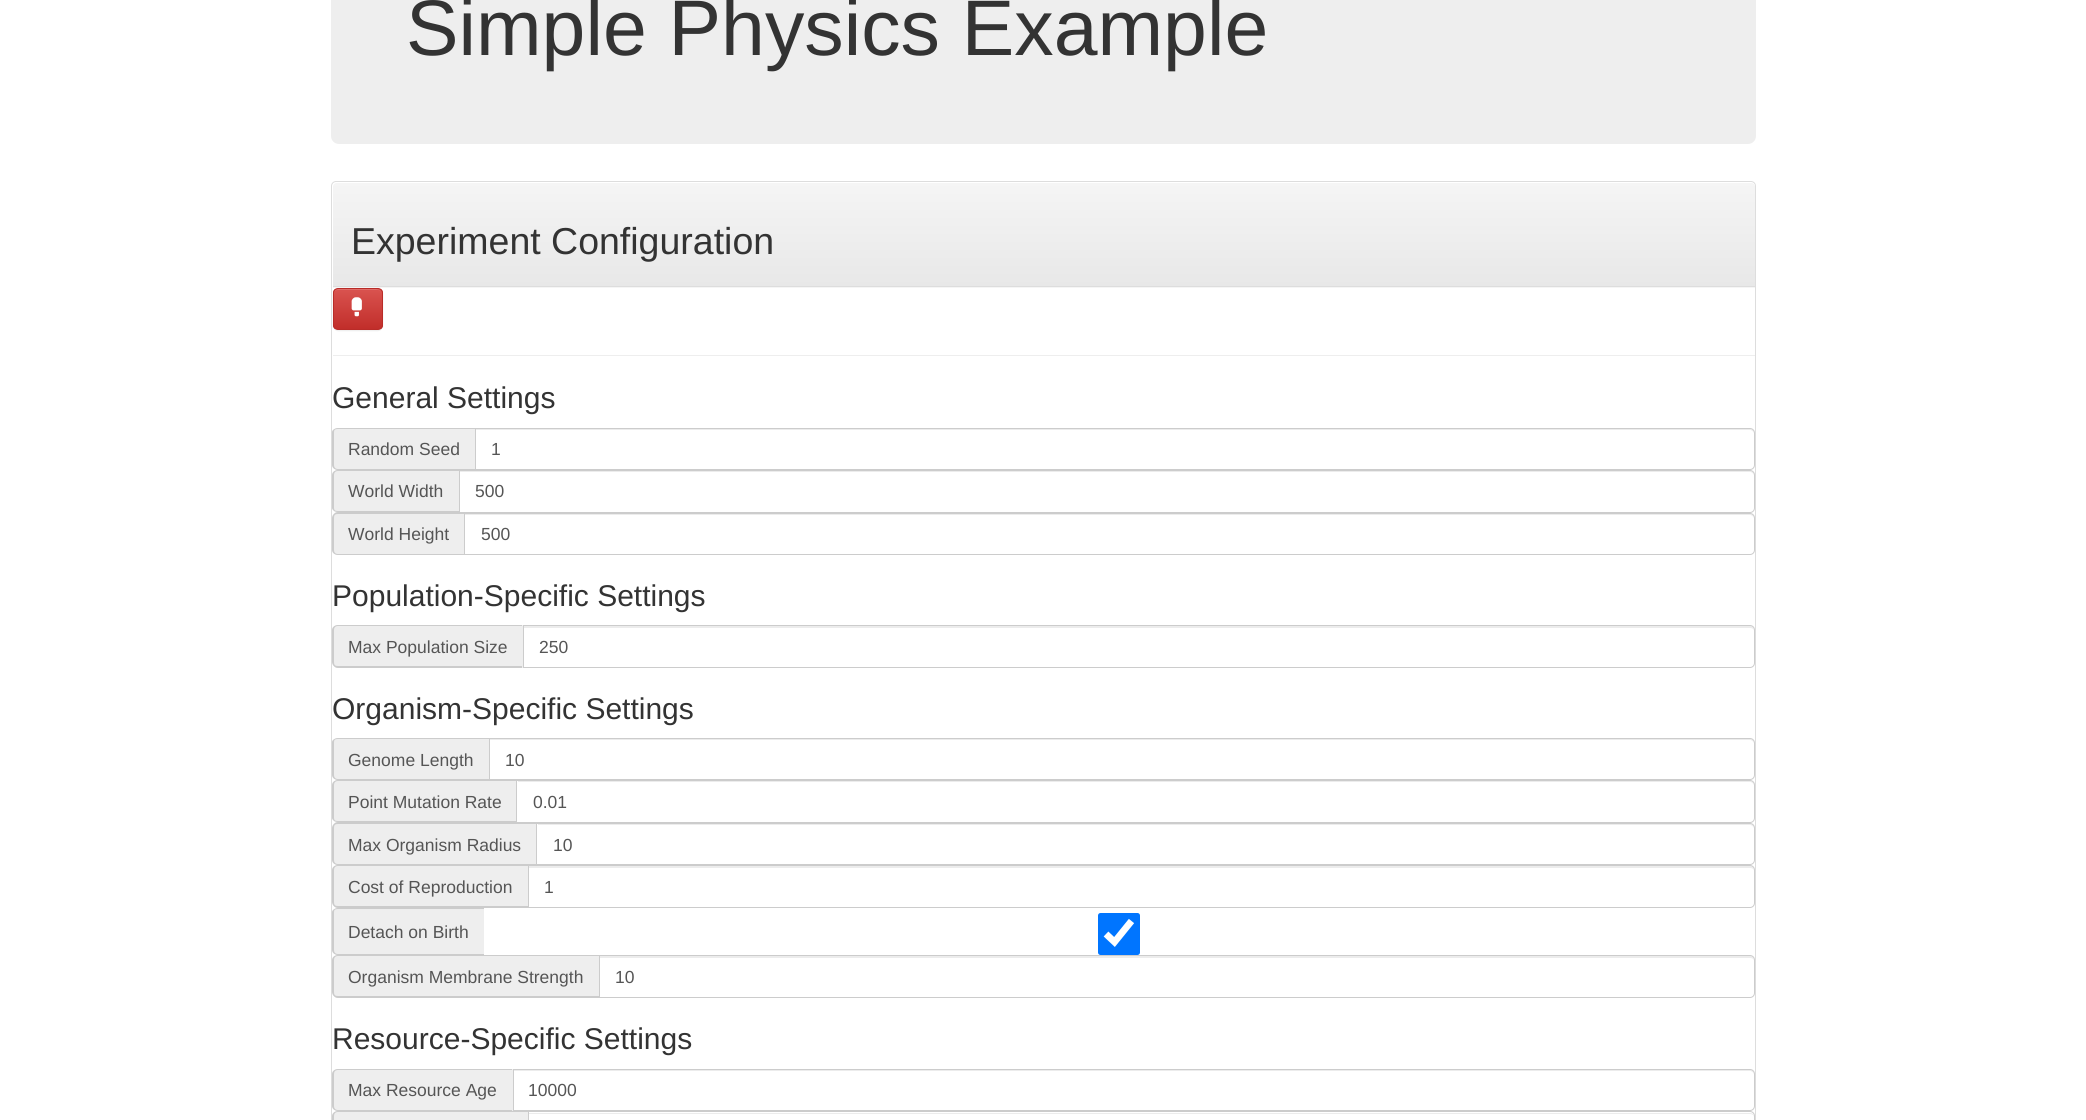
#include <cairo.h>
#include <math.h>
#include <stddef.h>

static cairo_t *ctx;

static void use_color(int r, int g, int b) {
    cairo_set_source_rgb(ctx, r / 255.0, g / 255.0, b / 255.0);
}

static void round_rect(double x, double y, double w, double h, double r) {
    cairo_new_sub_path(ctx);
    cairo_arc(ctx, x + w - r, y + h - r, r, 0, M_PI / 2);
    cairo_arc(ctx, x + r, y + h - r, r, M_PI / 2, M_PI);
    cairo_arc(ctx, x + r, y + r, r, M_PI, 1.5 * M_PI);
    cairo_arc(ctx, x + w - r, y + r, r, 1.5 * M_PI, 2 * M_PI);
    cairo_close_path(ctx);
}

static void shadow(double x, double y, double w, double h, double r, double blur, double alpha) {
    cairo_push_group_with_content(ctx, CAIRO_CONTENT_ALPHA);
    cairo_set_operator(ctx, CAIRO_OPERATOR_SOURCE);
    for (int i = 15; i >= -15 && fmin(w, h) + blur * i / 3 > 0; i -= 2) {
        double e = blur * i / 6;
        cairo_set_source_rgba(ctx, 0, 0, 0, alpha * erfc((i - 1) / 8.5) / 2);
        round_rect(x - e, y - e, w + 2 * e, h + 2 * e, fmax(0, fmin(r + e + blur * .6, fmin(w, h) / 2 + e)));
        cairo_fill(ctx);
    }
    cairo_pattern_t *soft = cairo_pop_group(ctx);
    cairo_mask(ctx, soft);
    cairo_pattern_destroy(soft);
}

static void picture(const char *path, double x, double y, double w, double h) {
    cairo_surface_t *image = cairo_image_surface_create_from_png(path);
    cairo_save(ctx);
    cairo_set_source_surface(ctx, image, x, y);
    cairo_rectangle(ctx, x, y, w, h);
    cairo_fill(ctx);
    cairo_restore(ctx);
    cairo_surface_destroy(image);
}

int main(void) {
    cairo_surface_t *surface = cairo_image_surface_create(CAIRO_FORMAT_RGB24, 2086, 1120);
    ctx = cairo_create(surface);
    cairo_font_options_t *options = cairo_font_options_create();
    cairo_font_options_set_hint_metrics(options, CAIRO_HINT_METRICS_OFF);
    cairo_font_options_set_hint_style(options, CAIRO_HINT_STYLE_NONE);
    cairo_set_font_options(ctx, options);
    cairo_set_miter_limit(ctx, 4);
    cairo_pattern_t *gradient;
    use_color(255, 255, 255);
    cairo_paint(ctx);
    use_color(238, 238, 238);
    round_rect(331, -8, 1425, 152, 8);
    cairo_fill(ctx);
    cairo_select_font_face(ctx, "Liberation Sans", CAIRO_FONT_SLANT_NORMAL, CAIRO_FONT_WEIGHT_NORMAL);
    cairo_set_font_size(ctx, 78.75);
    use_color(51, 51, 51);
    cairo_move_to(ctx, 406, 55);
    cairo_show_text(ctx, "Simple Physics Example");
    round_rect(331.5, 181.5, 1424, 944, 4.5);
    use_color(221, 221, 221);
    cairo_set_line_width(ctx, 1);
    cairo_stroke(ctx);
    use_color(245, 245, 245);
    cairo_new_path(ctx);
    cairo_move_to(ctx, 337, 183);
    cairo_line_to(ctx, 1751, 183);
    cairo_curve_to(ctx, 1753, 183, 1755, 185, 1755, 187);
    cairo_line_to(ctx, 1755, 288);
    cairo_line_to(ctx, 333, 288);
    cairo_line_to(ctx, 333, 187);
    cairo_curve_to(ctx, 333, 185, 335, 183, 337, 183);
    cairo_close_path(ctx);
    cairo_fill(ctx);
    gradient = cairo_pattern_create_linear(1044, 182, 1044, 286);
    cairo_pattern_add_color_stop_rgba(gradient, 0, 0.961, 0.961, 0.961, 1);
    cairo_pattern_add_color_stop_rgba(gradient, 1, 0.91, 0.91, 0.91, 1);
    cairo_set_source(ctx, gradient);
    cairo_pattern_destroy(gradient);
    cairo_new_path(ctx);
    cairo_move_to(ctx, 337, 183);
    cairo_line_to(ctx, 1751, 183);
    cairo_curve_to(ctx, 1753, 183, 1755, 185, 1755, 187);
    cairo_line_to(ctx, 1755, 286);
    cairo_line_to(ctx, 333, 286);
    cairo_line_to(ctx, 333, 187);
    cairo_curve_to(ctx, 333, 185, 335, 183, 337, 183);
    cairo_close_path(ctx);
    cairo_fill(ctx);
    use_color(221, 221, 221);
    cairo_rectangle(ctx, 333, 286, 1422, 1);
    cairo_fill(ctx);
    cairo_set_font_size(ctx, 37.5);
    use_color(51, 51, 51);
    cairo_move_to(ctx, 351, 254);
    cairo_show_text(ctx, "Experiment Configuration");
    use_color(0, 0, 0);
    shadow(333, 289, 50, 42, 5, 0.5, 0.07);
    cairo_save(ctx);
    round_rect(333, 288, 50, 42, 5);
    cairo_clip(ctx);
    gradient = cairo_pattern_create_linear(358, 289, 358, 329);
    cairo_pattern_add_color_stop_rgba(gradient, 0, 0.851, 0.325, 0.31, 1);
    cairo_pattern_add_color_stop_rgba(gradient, 1, 0.757, 0.18, 0.165, 1);
    cairo_set_source(ctx, gradient);
    cairo_pattern_destroy(gradient);
    cairo_rectangle(ctx, 333, 289, 50, 40);
    cairo_fill(ctx);
    cairo_restore(ctx);
    use_color(223, 109, 105);
    cairo_new_path(ctx);
    cairo_move_to(ctx, 338, 290);
    cairo_line_to(ctx, 378, 290);
    cairo_curve_to(ctx, 380, 290, 381, 292, 381, 294);
    cairo_curve_to(ctx, 381, 288, 375, 289, 370, 289);
    cairo_line_to(ctx, 344, 289);
    cairo_curve_to(ctx, 340, 289, 334, 288, 334, 294);
    cairo_curve_to(ctx, 334, 292, 335, 290, 338, 290);
    cairo_close_path(ctx);
    cairo_fill(ctx);
    round_rect(333.5, 288.5, 49, 41, 4.5);
    use_color(185, 44, 40);
    cairo_stroke(ctx);
    picture("img1.png", 351, 297, 11, 20);
    use_color(238, 238, 238);
    cairo_rectangle(ctx, 333, 355, 1422, 1);
    cairo_fill(ctx);
    cairo_set_font_size(ctx, 30);
    use_color(51, 51, 51);
    cairo_move_to(ctx, 332, 408);
    cairo_show_text(ctx, "General Settings");
    use_color(238, 238, 238);
    cairo_new_path(ctx);
    cairo_move_to(ctx, 338, 428);
    cairo_line_to(ctx, 475, 428);
    cairo_line_to(ctx, 475, 470);
    cairo_line_to(ctx, 338, 470);
    cairo_curve_to(ctx, 335, 470, 333, 468, 333, 465);
    cairo_line_to(ctx, 333, 433);
    cairo_curve_to(ctx, 333, 430, 335, 428, 338, 428);
    cairo_close_path(ctx);
    cairo_fill(ctx);
    use_color(204, 204, 204);
    cairo_set_fill_rule(ctx, CAIRO_FILL_RULE_EVEN_ODD);
    cairo_new_path(ctx);
    cairo_move_to(ctx, 338, 428);
    cairo_line_to(ctx, 475, 428);
    cairo_line_to(ctx, 475, 470);
    cairo_line_to(ctx, 338, 470);
    cairo_curve_to(ctx, 335, 470, 332, 468, 332, 465);
    cairo_line_to(ctx, 332, 432);
    cairo_curve_to(ctx, 332, 430, 335, 428, 338, 428);
    cairo_close_path(ctx);
    cairo_move_to(ctx, 338, 429);
    cairo_line_to(ctx, 475, 429);
    cairo_line_to(ctx, 475, 469);
    cairo_line_to(ctx, 338, 469);
    cairo_curve_to(ctx, 335, 469, 334, 467, 334, 465);
    cairo_line_to(ctx, 334, 432);
    cairo_curve_to(ctx, 334, 430, 335, 429, 338, 429);
    cairo_close_path(ctx);
    cairo_fill(ctx);
    cairo_set_font_size(ctx, 17.5);
    use_color(85, 85, 85);
    cairo_move_to(ctx, 348, 455);
    cairo_show_text(ctx, "Random Seed");
    use_color(236, 236, 236);
    cairo_set_fill_rule(ctx, CAIRO_FILL_RULE_WINDING);
    cairo_new_path(ctx);
    cairo_move_to(ctx, 476, 430);
    cairo_line_to(ctx, 1750, 430);
    cairo_curve_to(ctx, 1752, 430, 1754, 432, 1754, 434);
    cairo_curve_to(ctx, 1754, 431, 1753, 429, 1750, 429);
    cairo_line_to(ctx, 476, 429);
    cairo_close_path(ctx);
    cairo_fill(ctx);
    cairo_new_path(ctx);
    cairo_move_to(ctx, 475.5, 428.5);
    cairo_line_to(ctx, 1750, 428.5);
    cairo_curve_to(ctx, 1752.5, 428.5, 1754.5, 430.5, 1754.5, 433);
    cairo_line_to(ctx, 1754.5, 465);
    cairo_curve_to(ctx, 1754.5, 467.5, 1752.5, 469.5, 1750, 469.5);
    cairo_line_to(ctx, 475.5, 469.5);
    cairo_close_path(ctx);
    use_color(204, 204, 204);
    cairo_stroke(ctx);
    use_color(85, 85, 85);
    cairo_move_to(ctx, 491, 455);
    cairo_show_text(ctx, "1");
    use_color(238, 238, 238);
    cairo_new_path(ctx);
    cairo_move_to(ctx, 338, 470);
    cairo_line_to(ctx, 459, 470);
    cairo_line_to(ctx, 459, 513);
    cairo_line_to(ctx, 338, 513);
    cairo_curve_to(ctx, 335, 513, 333, 511, 333, 508);
    cairo_line_to(ctx, 333, 475);
    cairo_curve_to(ctx, 333, 472, 335, 470, 338, 470);
    cairo_close_path(ctx);
    cairo_fill(ctx);
    use_color(204, 204, 204);
    cairo_set_fill_rule(ctx, CAIRO_FILL_RULE_EVEN_ODD);
    cairo_new_path(ctx);
    cairo_move_to(ctx, 338, 470);
    cairo_line_to(ctx, 459, 470);
    cairo_line_to(ctx, 459, 512);
    cairo_line_to(ctx, 338, 512);
    cairo_curve_to(ctx, 335, 512, 332, 510, 332, 508);
    cairo_line_to(ctx, 332, 475);
    cairo_curve_to(ctx, 332, 472, 335, 470, 338, 470);
    cairo_close_path(ctx);
    cairo_move_to(ctx, 338, 471);
    cairo_line_to(ctx, 459, 471);
    cairo_line_to(ctx, 459, 511);
    cairo_line_to(ctx, 338, 511);
    cairo_curve_to(ctx, 335, 511, 334, 510, 334, 508);
    cairo_line_to(ctx, 334, 475);
    cairo_curve_to(ctx, 334, 473, 335, 471, 338, 471);
    cairo_close_path(ctx);
    cairo_fill(ctx);
    use_color(85, 85, 85);
    cairo_move_to(ctx, 348, 497);
    cairo_show_text(ctx, "World Width");
    use_color(238, 238, 238);
    cairo_new_path(ctx);
    cairo_move_to(ctx, 338, 513);
    cairo_line_to(ctx, 464, 513);
    cairo_line_to(ctx, 464, 555);
    cairo_line_to(ctx, 338, 555);
    cairo_curve_to(ctx, 335, 555, 333, 553, 333, 550);
    cairo_line_to(ctx, 333, 518);
    cairo_curve_to(ctx, 333, 515, 335, 513, 338, 513);
    cairo_close_path(ctx);
    cairo_fill(ctx);
    use_color(204, 204, 204);
    cairo_new_path(ctx);
    cairo_move_to(ctx, 338, 512);
    cairo_line_to(ctx, 464, 512);
    cairo_line_to(ctx, 464, 555);
    cairo_line_to(ctx, 338, 555);
    cairo_curve_to(ctx, 335, 555, 332, 553, 332, 550);
    cairo_line_to(ctx, 332, 518);
    cairo_curve_to(ctx, 332, 515, 335, 512, 338, 512);
    cairo_close_path(ctx);
    cairo_move_to(ctx, 338, 514);
    cairo_line_to(ctx, 464, 514);
    cairo_line_to(ctx, 464, 554);
    cairo_line_to(ctx, 338, 554);
    cairo_curve_to(ctx, 335, 554, 334, 552, 334, 550);
    cairo_line_to(ctx, 334, 518);
    cairo_curve_to(ctx, 334, 515, 335, 514, 338, 514);
    cairo_close_path(ctx);
    cairo_fill(ctx);
    use_color(255, 255, 255);
    cairo_new_path(ctx);
    cairo_move_to(ctx, 459, 470);
    cairo_line_to(ctx, 1750, 470);
    cairo_curve_to(ctx, 1753, 470, 1755, 472, 1755, 475);
    cairo_line_to(ctx, 1755, 508);
    cairo_curve_to(ctx, 1755, 511, 1753, 513, 1750, 513);
    cairo_line_to(ctx, 459, 513);
    cairo_close_path(ctx);
    cairo_fill(ctx);
    use_color(236, 236, 236);
    cairo_set_fill_rule(ctx, CAIRO_FILL_RULE_WINDING);
    cairo_new_path(ctx);
    cairo_move_to(ctx, 460, 472);
    cairo_line_to(ctx, 1750, 472);
    cairo_curve_to(ctx, 1752, 472, 1754, 474, 1754, 476);
    cairo_curve_to(ctx, 1754, 473, 1753, 471, 1750, 471);
    cairo_line_to(ctx, 460, 471);
    cairo_close_path(ctx);
    cairo_fill(ctx);
    cairo_new_path(ctx);
    cairo_move_to(ctx, 459.5, 470.5);
    cairo_line_to(ctx, 1750, 470.5);
    cairo_curve_to(ctx, 1752.5, 470.5, 1754.5, 472.5, 1754.5, 475);
    cairo_line_to(ctx, 1754.5, 508);
    cairo_curve_to(ctx, 1754.5, 510.5, 1752.5, 512.5, 1750, 512.5);
    cairo_line_to(ctx, 459.5, 512.5);
    cairo_close_path(ctx);
    use_color(204, 204, 204);
    cairo_stroke(ctx);
    use_color(85, 85, 85);
    cairo_move_to(ctx, 475, 497);
    cairo_show_text(ctx, "500");
    cairo_move_to(ctx, 348, 540);
    cairo_show_text(ctx, "World Height");
    use_color(236, 236, 236);
    cairo_new_path(ctx);
    cairo_move_to(ctx, 465, 515);
    cairo_line_to(ctx, 1750, 515);
    cairo_curve_to(ctx, 1752, 515, 1754, 517, 1754, 519);
    cairo_curve_to(ctx, 1754, 516, 1753, 514, 1750, 514);
    cairo_line_to(ctx, 465, 514);
    cairo_close_path(ctx);
    cairo_fill(ctx);
    cairo_new_path(ctx);
    cairo_move_to(ctx, 464.5, 513.5);
    cairo_line_to(ctx, 1750, 513.5);
    cairo_curve_to(ctx, 1752.5, 513.5, 1754.5, 515.5, 1754.5, 518);
    cairo_line_to(ctx, 1754.5, 550);
    cairo_curve_to(ctx, 1754.5, 552.5, 1752.5, 554.5, 1750, 554.5);
    cairo_line_to(ctx, 464.5, 554.5);
    cairo_close_path(ctx);
    use_color(204, 204, 204);
    cairo_stroke(ctx);
    use_color(85, 85, 85);
    cairo_move_to(ctx, 481, 540);
    cairo_show_text(ctx, "500");
    cairo_set_font_size(ctx, 30);
    use_color(51, 51, 51);
    cairo_move_to(ctx, 332, 606);
    cairo_show_text(ctx, "Population-Specific Settings");
    use_color(238, 238, 238);
    cairo_new_path(ctx);
    cairo_move_to(ctx, 338, 625);
    cairo_line_to(ctx, 523, 625);
    cairo_line_to(ctx, 523, 668);
    cairo_line_to(ctx, 338, 668);
    cairo_curve_to(ctx, 335, 668, 333, 666, 333, 663);
    cairo_line_to(ctx, 333, 630);
    cairo_curve_to(ctx, 333, 627, 335, 625, 338, 625);
    cairo_close_path(ctx);
    cairo_fill(ctx);
    use_color(204, 204, 204);
    cairo_set_fill_rule(ctx, CAIRO_FILL_RULE_EVEN_ODD);
    cairo_new_path(ctx);
    cairo_move_to(ctx, 338, 625);
    cairo_line_to(ctx, 522, 625);
    cairo_line_to(ctx, 522, 668);
    cairo_line_to(ctx, 338, 668);
    cairo_curve_to(ctx, 335, 668, 332, 665, 332, 662);
    cairo_line_to(ctx, 332, 630);
    cairo_curve_to(ctx, 332, 627, 335, 625, 338, 625);
    cairo_close_path(ctx);
    cairo_move_to(ctx, 338, 626);
    cairo_line_to(ctx, 522, 626);
    cairo_line_to(ctx, 522, 666);
    cairo_line_to(ctx, 338, 666);
    cairo_curve_to(ctx, 335, 666, 334, 665, 334, 662);
    cairo_line_to(ctx, 334, 630);
    cairo_curve_to(ctx, 334, 628, 335, 626, 338, 626);
    cairo_close_path(ctx);
    cairo_fill(ctx);
    cairo_set_font_size(ctx, 17.5);
    use_color(85, 85, 85);
    cairo_move_to(ctx, 348, 653);
    cairo_show_text(ctx, "Max Population Size");
    use_color(236, 236, 236);
    cairo_set_fill_rule(ctx, CAIRO_FILL_RULE_WINDING);
    cairo_new_path(ctx);
    cairo_move_to(ctx, 524, 628);
    cairo_line_to(ctx, 1750, 628);
    cairo_curve_to(ctx, 1752, 628, 1754, 629, 1754, 631);
    cairo_curve_to(ctx, 1754, 628, 1753, 626, 1750, 626);
    cairo_line_to(ctx, 524, 626);
    cairo_close_path(ctx);
    cairo_fill(ctx);
    cairo_new_path(ctx);
    cairo_move_to(ctx, 523.5, 625.5);
    cairo_line_to(ctx, 1750, 625.5);
    cairo_curve_to(ctx, 1752.5, 625.5, 1754.5, 627.5, 1754.5, 630);
    cairo_line_to(ctx, 1754.5, 663);
    cairo_curve_to(ctx, 1754.5, 665.5, 1752.5, 667.5, 1750, 667.5);
    cairo_line_to(ctx, 523.5, 667.5);
    cairo_close_path(ctx);
    use_color(204, 204, 204);
    cairo_stroke(ctx);
    use_color(85, 85, 85);
    cairo_move_to(ctx, 539, 653);
    cairo_show_text(ctx, "250");
    cairo_set_font_size(ctx, 30);
    use_color(51, 51, 51);
    cairo_move_to(ctx, 332, 719);
    cairo_show_text(ctx, "Organism-Specific Settings");
    use_color(238, 238, 238);
    cairo_new_path(ctx);
    cairo_move_to(ctx, 338, 738);
    cairo_line_to(ctx, 489, 738);
    cairo_line_to(ctx, 489, 780);
    cairo_line_to(ctx, 338, 780);
    cairo_curve_to(ctx, 335, 780, 333, 778, 333, 775);
    cairo_line_to(ctx, 333, 743);
    cairo_curve_to(ctx, 333, 740, 335, 738, 338, 738);
    cairo_close_path(ctx);
    cairo_fill(ctx);
    use_color(204, 204, 204);
    cairo_set_fill_rule(ctx, CAIRO_FILL_RULE_EVEN_ODD);
    cairo_new_path(ctx);
    cairo_move_to(ctx, 338, 738);
    cairo_line_to(ctx, 489, 738);
    cairo_line_to(ctx, 489, 780);
    cairo_line_to(ctx, 338, 780);
    cairo_curve_to(ctx, 335, 780, 332, 778, 332, 775);
    cairo_line_to(ctx, 332, 742);
    cairo_curve_to(ctx, 332, 740, 335, 738, 338, 738);
    cairo_close_path(ctx);
    cairo_move_to(ctx, 338, 739);
    cairo_line_to(ctx, 489, 739);
    cairo_line_to(ctx, 489, 779);
    cairo_line_to(ctx, 338, 779);
    cairo_curve_to(ctx, 335, 779, 334, 777, 334, 775);
    cairo_line_to(ctx, 334, 742);
    cairo_curve_to(ctx, 334, 740, 335, 739, 338, 739);
    cairo_close_path(ctx);
    cairo_fill(ctx);
    cairo_set_font_size(ctx, 17.5);
    use_color(85, 85, 85);
    cairo_move_to(ctx, 348, 766);
    cairo_show_text(ctx, "Genome Length");
    use_color(236, 236, 236);
    cairo_set_fill_rule(ctx, CAIRO_FILL_RULE_WINDING);
    cairo_new_path(ctx);
    cairo_move_to(ctx, 490, 740);
    cairo_line_to(ctx, 1750, 740);
    cairo_curve_to(ctx, 1752, 740, 1754, 742, 1754, 744);
    cairo_curve_to(ctx, 1754, 741, 1753, 739, 1750, 739);
    cairo_line_to(ctx, 490, 739);
    cairo_close_path(ctx);
    cairo_fill(ctx);
    cairo_new_path(ctx);
    cairo_move_to(ctx, 489.5, 738.5);
    cairo_line_to(ctx, 1750, 738.5);
    cairo_curve_to(ctx, 1752.5, 738.5, 1754.5, 740.5, 1754.5, 743);
    cairo_line_to(ctx, 1754.5, 775);
    cairo_curve_to(ctx, 1754.5, 777.5, 1752.5, 779.5, 1750, 779.5);
    cairo_line_to(ctx, 489.5, 779.5);
    cairo_close_path(ctx);
    use_color(204, 204, 204);
    cairo_stroke(ctx);
    use_color(85, 85, 85);
    cairo_move_to(ctx, 505, 766);
    cairo_show_text(ctx, "10");
    use_color(238, 238, 238);
    cairo_new_path(ctx);
    cairo_move_to(ctx, 338, 780);
    cairo_line_to(ctx, 516, 780);
    cairo_line_to(ctx, 516, 823);
    cairo_line_to(ctx, 338, 823);
    cairo_curve_to(ctx, 335, 823, 333, 821, 333, 818);
    cairo_line_to(ctx, 333, 785);
    cairo_curve_to(ctx, 333, 782, 335, 780, 338, 780);
    cairo_close_path(ctx);
    cairo_fill(ctx);
    use_color(204, 204, 204);
    cairo_set_fill_rule(ctx, CAIRO_FILL_RULE_EVEN_ODD);
    cairo_new_path(ctx);
    cairo_move_to(ctx, 338, 780);
    cairo_line_to(ctx, 516, 780);
    cairo_line_to(ctx, 516, 822);
    cairo_line_to(ctx, 338, 822);
    cairo_curve_to(ctx, 335, 822, 332, 820, 332, 818);
    cairo_line_to(ctx, 332, 785);
    cairo_curve_to(ctx, 332, 782, 335, 780, 338, 780);
    cairo_close_path(ctx);
    cairo_move_to(ctx, 338, 781);
    cairo_line_to(ctx, 516, 781);
    cairo_line_to(ctx, 516, 821);
    cairo_line_to(ctx, 338, 821);
    cairo_curve_to(ctx, 335, 821, 334, 820, 334, 818);
    cairo_line_to(ctx, 334, 785);
    cairo_curve_to(ctx, 334, 783, 335, 781, 338, 781);
    cairo_close_path(ctx);
    cairo_fill(ctx);
    use_color(85, 85, 85);
    cairo_move_to(ctx, 348, 808);
    cairo_show_text(ctx, "Point Mutation Rate");
    use_color(238, 238, 238);
    cairo_new_path(ctx);
    cairo_move_to(ctx, 338, 823);
    cairo_line_to(ctx, 536, 823);
    cairo_line_to(ctx, 536, 865);
    cairo_line_to(ctx, 338, 865);
    cairo_curve_to(ctx, 335, 865, 333, 863, 333, 860);
    cairo_line_to(ctx, 333, 828);
    cairo_curve_to(ctx, 333, 825, 335, 823, 338, 823);
    cairo_close_path(ctx);
    cairo_fill(ctx);
    use_color(204, 204, 204);
    cairo_new_path(ctx);
    cairo_move_to(ctx, 338, 822);
    cairo_line_to(ctx, 536, 822);
    cairo_line_to(ctx, 536, 865);
    cairo_line_to(ctx, 338, 865);
    cairo_curve_to(ctx, 335, 865, 332, 863, 332, 860);
    cairo_line_to(ctx, 332, 828);
    cairo_curve_to(ctx, 332, 825, 335, 822, 338, 822);
    cairo_close_path(ctx);
    cairo_move_to(ctx, 338, 824);
    cairo_line_to(ctx, 536, 824);
    cairo_line_to(ctx, 536, 864);
    cairo_line_to(ctx, 338, 864);
    cairo_curve_to(ctx, 335, 864, 334, 862, 334, 860);
    cairo_line_to(ctx, 334, 828);
    cairo_curve_to(ctx, 334, 825, 335, 824, 338, 824);
    cairo_close_path(ctx);
    cairo_fill(ctx);
    use_color(255, 255, 255);
    cairo_new_path(ctx);
    cairo_move_to(ctx, 516, 780);
    cairo_line_to(ctx, 1750, 780);
    cairo_curve_to(ctx, 1753, 780, 1755, 782, 1755, 785);
    cairo_line_to(ctx, 1755, 818);
    cairo_curve_to(ctx, 1755, 821, 1753, 823, 1750, 823);
    cairo_line_to(ctx, 516, 823);
    cairo_close_path(ctx);
    cairo_fill(ctx);
    use_color(236, 236, 236);
    cairo_set_fill_rule(ctx, CAIRO_FILL_RULE_WINDING);
    cairo_new_path(ctx);
    cairo_move_to(ctx, 518, 782);
    cairo_line_to(ctx, 1750, 782);
    cairo_curve_to(ctx, 1752, 782, 1754, 784, 1754, 786);
    cairo_curve_to(ctx, 1754, 783, 1753, 781, 1750, 781);
    cairo_line_to(ctx, 518, 781);
    cairo_close_path(ctx);
    cairo_fill(ctx);
    cairo_new_path(ctx);
    cairo_move_to(ctx, 516.5, 780.5);
    cairo_line_to(ctx, 1750, 780.5);
    cairo_curve_to(ctx, 1752.5, 780.5, 1754.5, 782.5, 1754.5, 785);
    cairo_line_to(ctx, 1754.5, 818);
    cairo_curve_to(ctx, 1754.5, 820.5, 1752.5, 822.5, 1750, 822.5);
    cairo_line_to(ctx, 516.5, 822.5);
    cairo_close_path(ctx);
    use_color(204, 204, 204);
    cairo_stroke(ctx);
    use_color(85, 85, 85);
    cairo_move_to(ctx, 533, 808);
    cairo_show_text(ctx, "0.01");
    cairo_move_to(ctx, 348, 851);
    cairo_show_text(ctx, "Max Organism Radius");
    use_color(236, 236, 236);
    cairo_new_path(ctx);
    cairo_move_to(ctx, 538, 825);
    cairo_line_to(ctx, 1750, 825);
    cairo_curve_to(ctx, 1752, 825, 1754, 827, 1754, 829);
    cairo_curve_to(ctx, 1754, 826, 1753, 824, 1750, 824);
    cairo_line_to(ctx, 538, 824);
    cairo_close_path(ctx);
    cairo_fill(ctx);
    cairo_new_path(ctx);
    cairo_move_to(ctx, 536.5, 823.5);
    cairo_line_to(ctx, 1750, 823.5);
    cairo_curve_to(ctx, 1752.5, 823.5, 1754.5, 825.5, 1754.5, 828);
    cairo_line_to(ctx, 1754.5, 860);
    cairo_curve_to(ctx, 1754.5, 862.5, 1752.5, 864.5, 1750, 864.5);
    cairo_line_to(ctx, 536.5, 864.5);
    cairo_close_path(ctx);
    use_color(204, 204, 204);
    cairo_stroke(ctx);
    use_color(85, 85, 85);
    cairo_move_to(ctx, 553, 851);
    cairo_show_text(ctx, "10");
    use_color(238, 238, 238);
    cairo_new_path(ctx);
    cairo_move_to(ctx, 338, 865);
    cairo_line_to(ctx, 528, 865);
    cairo_line_to(ctx, 528, 908);
    cairo_line_to(ctx, 338, 908);
    cairo_curve_to(ctx, 335, 908, 333, 906, 333, 903);
    cairo_line_to(ctx, 333, 870);
    cairo_curve_to(ctx, 333, 867, 335, 865, 338, 865);
    cairo_close_path(ctx);
    cairo_fill(ctx);
    use_color(204, 204, 204);
    cairo_set_fill_rule(ctx, CAIRO_FILL_RULE_EVEN_ODD);
    cairo_new_path(ctx);
    cairo_move_to(ctx, 338, 865);
    cairo_line_to(ctx, 528, 865);
    cairo_line_to(ctx, 528, 908);
    cairo_line_to(ctx, 338, 908);
    cairo_curve_to(ctx, 335, 908, 332, 905, 332, 902);
    cairo_line_to(ctx, 332, 870);
    cairo_curve_to(ctx, 332, 867, 335, 865, 338, 865);
    cairo_close_path(ctx);
    cairo_move_to(ctx, 338, 866);
    cairo_line_to(ctx, 528, 866);
    cairo_line_to(ctx, 528, 906);
    cairo_line_to(ctx, 338, 906);
    cairo_curve_to(ctx, 335, 906, 334, 905, 334, 902);
    cairo_line_to(ctx, 334, 870);
    cairo_curve_to(ctx, 334, 868, 335, 866, 338, 866);
    cairo_close_path(ctx);
    cairo_fill(ctx);
    use_color(85, 85, 85);
    cairo_move_to(ctx, 348, 893);
    cairo_show_text(ctx, "Cost of Reproduction");
    use_color(236, 236, 236);
    cairo_set_fill_rule(ctx, CAIRO_FILL_RULE_WINDING);
    cairo_new_path(ctx);
    cairo_move_to(ctx, 529, 868);
    cairo_line_to(ctx, 1750, 868);
    cairo_curve_to(ctx, 1752, 868, 1754, 869, 1754, 871);
    cairo_curve_to(ctx, 1754, 868, 1753, 866, 1750, 866);
    cairo_line_to(ctx, 529, 866);
    cairo_close_path(ctx);
    cairo_fill(ctx);
    cairo_new_path(ctx);
    cairo_move_to(ctx, 528.5, 865.5);
    cairo_line_to(ctx, 1750, 865.5);
    cairo_curve_to(ctx, 1752.5, 865.5, 1754.5, 867.5, 1754.5, 870);
    cairo_line_to(ctx, 1754.5, 903);
    cairo_curve_to(ctx, 1754.5, 905.5, 1752.5, 907.5, 1750, 907.5);
    cairo_line_to(ctx, 528.5, 907.5);
    cairo_close_path(ctx);
    use_color(204, 204, 204);
    cairo_stroke(ctx);
    use_color(85, 85, 85);
    cairo_move_to(ctx, 544, 893);
    cairo_show_text(ctx, "1");
    use_color(238, 238, 238);
    cairo_new_path(ctx);
    cairo_move_to(ctx, 338, 908);
    cairo_line_to(ctx, 484, 908);
    cairo_line_to(ctx, 484, 955);
    cairo_line_to(ctx, 338, 955);
    cairo_curve_to(ctx, 335, 955, 333, 953, 333, 950);
    cairo_line_to(ctx, 333, 913);
    cairo_curve_to(ctx, 333, 910, 335, 908, 338, 908);
    cairo_close_path(ctx);
    cairo_fill(ctx);
    use_color(204, 204, 204);
    cairo_set_fill_rule(ctx, CAIRO_FILL_RULE_EVEN_ODD);
    cairo_new_path(ctx);
    cairo_move_to(ctx, 338, 908);
    cairo_line_to(ctx, 484, 908);
    cairo_line_to(ctx, 484, 955);
    cairo_line_to(ctx, 338, 955);
    cairo_curve_to(ctx, 335, 955, 332, 953, 332, 950);
    cairo_line_to(ctx, 332, 912);
    cairo_curve_to(ctx, 332, 910, 335, 908, 338, 908);
    cairo_close_path(ctx);
    cairo_move_to(ctx, 338, 909);
    cairo_line_to(ctx, 484, 909);
    cairo_line_to(ctx, 484, 954);
    cairo_line_to(ctx, 338, 954);
    cairo_curve_to(ctx, 335, 954, 334, 952, 334, 950);
    cairo_line_to(ctx, 334, 912);
    cairo_curve_to(ctx, 334, 910, 335, 909, 338, 909);
    cairo_close_path(ctx);
    cairo_fill(ctx);
    use_color(85, 85, 85);
    cairo_move_to(ctx, 348, 938);
    cairo_show_text(ctx, "Detach on Birth");
    use_color(0, 117, 255);
    round_rect(1098, 913, 42, 42, 2.5);
    cairo_fill(ctx);
    cairo_new_path(ctx);
    cairo_move_to(ctx, 1106, 934);
    cairo_line_to(ctx, 1114.5, 942);
    cairo_line_to(ctx, 1131.5, 921);
    use_color(255, 255, 255);
    cairo_set_line_width(ctx, 6.8);
    cairo_stroke(ctx);
    use_color(238, 238, 238);
    cairo_new_path(ctx);
    cairo_move_to(ctx, 338, 955);
    cairo_line_to(ctx, 599, 955);
    cairo_line_to(ctx, 599, 998);
    cairo_line_to(ctx, 338, 998);
    cairo_curve_to(ctx, 335, 998, 333, 996, 333, 993);
    cairo_line_to(ctx, 333, 960);
    cairo_curve_to(ctx, 333, 957, 335, 955, 338, 955);
    cairo_close_path(ctx);
    cairo_fill(ctx);
    use_color(204, 204, 204);
    cairo_new_path(ctx);
    cairo_move_to(ctx, 338, 955);
    cairo_line_to(ctx, 599, 955);
    cairo_line_to(ctx, 599, 998);
    cairo_line_to(ctx, 338, 998);
    cairo_curve_to(ctx, 335, 998, 332, 995, 332, 992);
    cairo_line_to(ctx, 332, 960);
    cairo_curve_to(ctx, 332, 957, 335, 955, 338, 955);
    cairo_close_path(ctx);
    cairo_move_to(ctx, 338, 956);
    cairo_line_to(ctx, 599, 956);
    cairo_line_to(ctx, 599, 996);
    cairo_line_to(ctx, 338, 996);
    cairo_curve_to(ctx, 335, 996, 334, 995, 334, 992);
    cairo_line_to(ctx, 334, 960);
    cairo_curve_to(ctx, 334, 958, 335, 956, 338, 956);
    cairo_close_path(ctx);
    cairo_fill(ctx);
    use_color(85, 85, 85);
    cairo_move_to(ctx, 348, 983);
    cairo_show_text(ctx, "Organism Membrane Strength");
    use_color(236, 236, 236);
    cairo_set_fill_rule(ctx, CAIRO_FILL_RULE_WINDING);
    cairo_new_path(ctx);
    cairo_move_to(ctx, 600, 958);
    cairo_line_to(ctx, 1750, 958);
    cairo_curve_to(ctx, 1752, 958, 1754, 959, 1754, 961);
    cairo_curve_to(ctx, 1754, 958, 1753, 956, 1750, 956);
    cairo_line_to(ctx, 600, 956);
    cairo_close_path(ctx);
    cairo_fill(ctx);
    cairo_new_path(ctx);
    cairo_move_to(ctx, 599.5, 955.5);
    cairo_line_to(ctx, 1750, 955.5);
    cairo_curve_to(ctx, 1752.5, 955.5, 1754.5, 957.5, 1754.5, 960);
    cairo_line_to(ctx, 1754.5, 993);
    cairo_curve_to(ctx, 1754.5, 995.5, 1752.5, 997.5, 1750, 997.5);
    cairo_line_to(ctx, 599.5, 997.5);
    cairo_close_path(ctx);
    use_color(204, 204, 204);
    cairo_set_line_width(ctx, 1);
    cairo_stroke(ctx);
    use_color(85, 85, 85);
    cairo_move_to(ctx, 615, 983);
    cairo_show_text(ctx, "10");
    cairo_set_font_size(ctx, 30);
    use_color(51, 51, 51);
    cairo_move_to(ctx, 332, 1049);
    cairo_show_text(ctx, "Resource-Specific Settings");
    use_color(238, 238, 238);
    cairo_new_path(ctx);
    cairo_move_to(ctx, 338, 1069);
    cairo_line_to(ctx, 513, 1069);
    cairo_line_to(ctx, 513, 1111);
    cairo_line_to(ctx, 338, 1111);
    cairo_curve_to(ctx, 335, 1111, 333, 1109, 333, 1106);
    cairo_line_to(ctx, 333, 1074);
    cairo_curve_to(ctx, 333, 1071, 335, 1069, 338, 1069);
    cairo_close_path(ctx);
    cairo_fill(ctx);
    use_color(204, 204, 204);
    cairo_set_fill_rule(ctx, CAIRO_FILL_RULE_EVEN_ODD);
    cairo_new_path(ctx);
    cairo_move_to(ctx, 338, 1069);
    cairo_line_to(ctx, 512, 1069);
    cairo_line_to(ctx, 512, 1111);
    cairo_line_to(ctx, 338, 1111);
    cairo_curve_to(ctx, 335, 1111, 332, 1109, 332, 1106);
    cairo_line_to(ctx, 332, 1074);
    cairo_curve_to(ctx, 332, 1071, 335, 1069, 338, 1069);
    cairo_close_path(ctx);
    cairo_move_to(ctx, 338, 1070);
    cairo_line_to(ctx, 512, 1070);
    cairo_line_to(ctx, 512, 1110);
    cairo_line_to(ctx, 338, 1110);
    cairo_curve_to(ctx, 335, 1110, 334, 1108, 334, 1106);
    cairo_line_to(ctx, 334, 1074);
    cairo_curve_to(ctx, 334, 1072, 335, 1070, 338, 1070);
    cairo_close_path(ctx);
    cairo_fill(ctx);
    cairo_set_font_size(ctx, 17.5);
    use_color(85, 85, 85);
    cairo_move_to(ctx, 348, 1096);
    cairo_show_text(ctx, "Max Resource Age");
    use_color(236, 236, 236);
    cairo_set_fill_rule(ctx, CAIRO_FILL_RULE_WINDING);
    cairo_new_path(ctx);
    cairo_move_to(ctx, 514, 1071);
    cairo_line_to(ctx, 1750, 1071);
    cairo_curve_to(ctx, 1752, 1071, 1754, 1073, 1754, 1075);
    cairo_curve_to(ctx, 1754, 1072, 1753, 1070, 1750, 1070);
    cairo_line_to(ctx, 514, 1070);
    cairo_close_path(ctx);
    cairo_fill(ctx);
    cairo_new_path(ctx);
    cairo_move_to(ctx, 513.5, 1069.5);
    cairo_line_to(ctx, 1750, 1069.5);
    cairo_curve_to(ctx, 1752.5, 1069.5, 1754.5, 1071.5, 1754.5, 1074);
    cairo_line_to(ctx, 1754.5, 1106);
    cairo_curve_to(ctx, 1754.5, 1108.5, 1752.5, 1110.5, 1750, 1110.5);
    cairo_line_to(ctx, 513.5, 1110.5);
    cairo_close_path(ctx);
    use_color(204, 204, 204);
    cairo_stroke(ctx);
    use_color(85, 85, 85);
    cairo_move_to(ctx, 528, 1096);
    cairo_show_text(ctx, "10000");
    use_color(238, 238, 238);
    cairo_new_path(ctx);
    cairo_move_to(ctx, 338, 1111);
    cairo_line_to(ctx, 528, 1111);
    cairo_line_to(ctx, 528, 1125);
    cairo_line_to(ctx, 338, 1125);
    cairo_curve_to(ctx, 335, 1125, 333, 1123, 333, 1120);
    cairo_line_to(ctx, 333, 1116);
    cairo_curve_to(ctx, 333, 1113, 335, 1111, 338, 1111);
    cairo_close_path(ctx);
    cairo_fill(ctx);
    use_color(204, 204, 204);
    cairo_set_fill_rule(ctx, CAIRO_FILL_RULE_EVEN_ODD);
    cairo_new_path(ctx);
    cairo_move_to(ctx, 338, 1111);
    cairo_line_to(ctx, 528, 1111);
    cairo_line_to(ctx, 528, 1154);
    cairo_line_to(ctx, 338, 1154);
    cairo_curve_to(ctx, 335, 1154, 332, 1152, 332, 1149);
    cairo_line_to(ctx, 332, 1116);
    cairo_curve_to(ctx, 332, 1113, 335, 1111, 338, 1111);
    cairo_close_path(ctx);
    cairo_move_to(ctx, 338, 1112);
    cairo_line_to(ctx, 528, 1112);
    cairo_line_to(ctx, 528, 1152);
    cairo_line_to(ctx, 338, 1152);
    cairo_curve_to(ctx, 335, 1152, 334, 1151, 334, 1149);
    cairo_line_to(ctx, 334, 1116);
    cairo_curve_to(ctx, 334, 1114, 335, 1112, 338, 1112);
    cairo_close_path(ctx);
    cairo_fill(ctx);
    use_color(236, 236, 236);
    cairo_set_fill_rule(ctx, CAIRO_FILL_RULE_WINDING);
    cairo_new_path(ctx);
    cairo_move_to(ctx, 529, 1114);
    cairo_line_to(ctx, 1750, 1114);
    cairo_curve_to(ctx, 1752, 1114, 1754, 1115, 1754, 1118);
    cairo_curve_to(ctx, 1754, 1115, 1753, 1113, 1750, 1113);
    cairo_line_to(ctx, 529, 1113);
    cairo_close_path(ctx);
    cairo_fill(ctx);
    cairo_new_path(ctx);
    cairo_move_to(ctx, 528.5, 1111.5);
    cairo_line_to(ctx, 1750, 1111.5);
    cairo_curve_to(ctx, 1752.5, 1111.5, 1754.5, 1113.5, 1754.5, 1116);
    cairo_line_to(ctx, 1754.5, 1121);
    cairo_curve_to(ctx, 1754.5, 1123.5, 1752.5, 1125.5, 1750, 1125.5);
    cairo_line_to(ctx, 528.5, 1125.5);
    cairo_close_path(ctx);
    use_color(204, 204, 204);
    cairo_stroke(ctx);
    cairo_surface_write_to_png(surface, "result.png");
    cairo_font_options_destroy(options);
    cairo_destroy(ctx);
    cairo_surface_destroy(surface);
    return 0;
}
